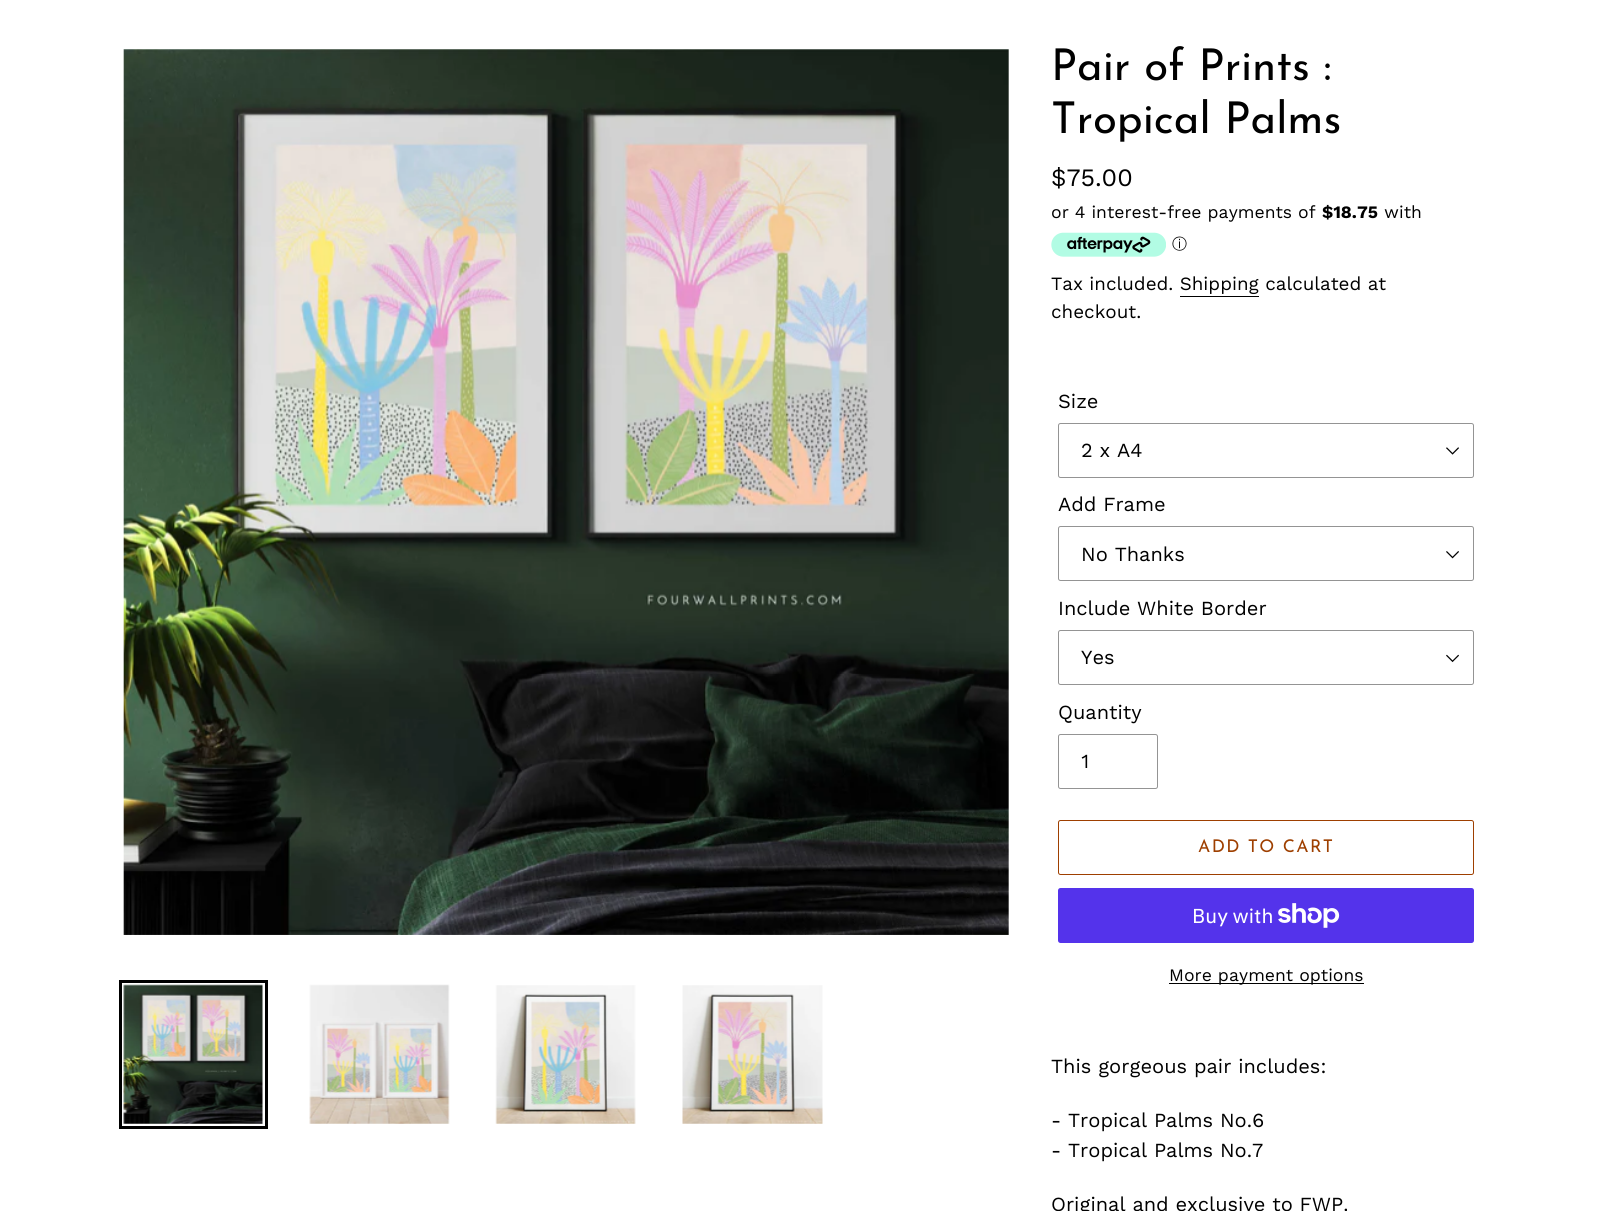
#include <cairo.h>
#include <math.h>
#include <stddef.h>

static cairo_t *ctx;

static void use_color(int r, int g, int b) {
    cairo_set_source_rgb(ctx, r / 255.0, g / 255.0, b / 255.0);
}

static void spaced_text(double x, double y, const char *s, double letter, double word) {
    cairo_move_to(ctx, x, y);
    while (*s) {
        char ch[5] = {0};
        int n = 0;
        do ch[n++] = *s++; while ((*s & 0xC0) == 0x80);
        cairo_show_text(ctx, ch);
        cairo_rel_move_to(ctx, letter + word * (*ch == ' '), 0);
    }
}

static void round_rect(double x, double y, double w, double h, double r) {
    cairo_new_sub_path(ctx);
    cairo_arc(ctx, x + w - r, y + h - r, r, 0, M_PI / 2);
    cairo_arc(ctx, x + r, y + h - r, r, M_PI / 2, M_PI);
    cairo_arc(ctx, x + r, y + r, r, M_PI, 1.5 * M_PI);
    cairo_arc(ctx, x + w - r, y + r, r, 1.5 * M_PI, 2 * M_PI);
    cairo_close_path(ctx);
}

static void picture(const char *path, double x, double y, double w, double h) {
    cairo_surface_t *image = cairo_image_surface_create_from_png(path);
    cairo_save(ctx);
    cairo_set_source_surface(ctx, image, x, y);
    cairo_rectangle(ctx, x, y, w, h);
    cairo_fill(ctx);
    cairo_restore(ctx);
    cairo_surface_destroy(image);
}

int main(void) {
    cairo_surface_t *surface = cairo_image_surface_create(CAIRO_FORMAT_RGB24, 1598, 1211);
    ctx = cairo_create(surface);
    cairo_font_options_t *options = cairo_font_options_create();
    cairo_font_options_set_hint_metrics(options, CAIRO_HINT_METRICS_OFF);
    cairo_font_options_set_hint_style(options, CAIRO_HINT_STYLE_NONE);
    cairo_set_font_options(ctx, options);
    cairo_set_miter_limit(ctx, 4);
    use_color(255, 255, 255);
    cairo_paint(ctx);
    picture("img1.png", 123, 49, 886, 886);
    cairo_rectangle(ctx, 120.5, 981.5, 146, 146);
    use_color(0, 0, 0);
    cairo_set_line_width(ctx, 3);
    cairo_stroke(ctx);
    picture("img2.png", 123, 984, 140, 140);
    picture("img3.png", 309, 984, 141, 140);
    picture("img4.png", 495, 985, 141, 139);
    picture("img5.png", 682, 985, 141, 139);
    cairo_select_font_face(ctx, "Josefin Sans", CAIRO_FONT_SLANT_NORMAL, CAIRO_FONT_WEIGHT_NORMAL);
    cairo_set_font_size(ctx, 43.75);
    cairo_move_to(ctx, 1051, 80);
    cairo_show_text(ctx, "Pair of Prints :");
    cairo_move_to(ctx, 1051, 133);
    cairo_show_text(ctx, "Tropical Palms");
    cairo_select_font_face(ctx, "Work Sans", CAIRO_FONT_SLANT_NORMAL, CAIRO_FONT_WEIGHT_NORMAL);
    cairo_set_font_size(ctx, 25);
    cairo_move_to(ctx, 1051, 186);
    cairo_show_text(ctx, "$75.00");
    cairo_set_font_size(ctx, 17.5);
    cairo_move_to(ctx, 1051, 218);
    cairo_show_text(ctx, "or 4 interest-free payments of");
    cairo_select_font_face(ctx, "Work Sans", CAIRO_FONT_SLANT_NORMAL, CAIRO_FONT_WEIGHT_BOLD);
    cairo_move_to(ctx, 1322, 218);
    cairo_show_text(ctx, "$18.75");
    cairo_select_font_face(ctx, "Work Sans", CAIRO_FONT_SLANT_NORMAL, CAIRO_FONT_WEIGHT_NORMAL);
    cairo_move_to(ctx, 1384, 218);
    cairo_show_text(ctx, "with");
    picture("img6.png", 1051, 232, 115, 25);
    cairo_select_font_face(ctx, "WenQuanYi Zen Hei Medium", CAIRO_FONT_SLANT_NORMAL, CAIRO_FONT_WEIGHT_NORMAL);
    cairo_set_font_size(ctx, 15);
    cairo_move_to(ctx, 1172, 249);
    cairo_show_text(ctx, "ⓘ");
    cairo_select_font_face(ctx, "Work Sans", CAIRO_FONT_SLANT_NORMAL, CAIRO_FONT_WEIGHT_NORMAL);
    cairo_set_font_size(ctx, 18.75);
    cairo_move_to(ctx, 1051, 290);
    cairo_show_text(ctx, "Tax included. Shipping calculated at");
    cairo_rectangle(ctx, 1180, 296, 79, 1);
    cairo_fill(ctx);
    cairo_move_to(ctx, 1051, 318);
    cairo_show_text(ctx, "checkout.");
    cairo_set_font_size(ctx, 20);
    cairo_move_to(ctx, 1058, 408);
    cairo_show_text(ctx, "Size");
    picture("img7.png", 1446, 447, 13, 8);
    round_rect(1058.5, 423.5, 415, 54, 2);
    use_color(148, 148, 148);
    cairo_set_line_width(ctx, 1);
    cairo_stroke(ctx);
    use_color(0, 0, 0);
    cairo_move_to(ctx, 1081, 457);
    cairo_show_text(ctx, "2 x A4");
    cairo_move_to(ctx, 1058, 511);
    cairo_show_text(ctx, "Add Frame");
    picture("img8.png", 1446, 551, 13, 8);
    round_rect(1058.5, 526.5, 415, 54, 2);
    use_color(148, 148, 148);
    cairo_stroke(ctx);
    use_color(0, 0, 0);
    cairo_move_to(ctx, 1081, 561);
    cairo_show_text(ctx, "No Thanks");
    cairo_move_to(ctx, 1058, 615);
    cairo_show_text(ctx, "Include White Border");
    picture("img9.png", 1446, 654, 13, 9);
    round_rect(1058.5, 630.5, 415, 54, 2);
    use_color(148, 148, 148);
    cairo_stroke(ctx);
    use_color(0, 0, 0);
    cairo_move_to(ctx, 1081, 664);
    cairo_show_text(ctx, "Yes");
    cairo_move_to(ctx, 1058, 719);
    cairo_show_text(ctx, "Quantity");
    round_rect(1058.5, 734.5, 99, 54, 2);
    use_color(148, 148, 148);
    cairo_stroke(ctx);
    use_color(0, 0, 0);
    cairo_move_to(ctx, 1081, 768);
    cairo_show_text(ctx, "1");
    round_rect(1058.5, 820.5, 415, 54, 2);
    use_color(158, 63, 0);
    cairo_stroke(ctx);
    cairo_select_font_face(ctx, "Josefin Sans", CAIRO_FONT_SLANT_NORMAL, CAIRO_FONT_WEIGHT_NORMAL);
    cairo_set_font_size(ctx, 17.5);
    spaced_text(1198, 852, "ADD TO CART", 1.4, 0);
    use_color(84, 51, 235);
    round_rect(1058, 888, 416, 55, 2.5);
    cairo_fill(ctx);
    cairo_select_font_face(ctx, "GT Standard", CAIRO_FONT_SLANT_NORMAL, CAIRO_FONT_WEIGHT_NORMAL);
    cairo_set_font_size(ctx, 20);
    use_color(255, 255, 255);
    cairo_move_to(ctx, 1192, 923);
    cairo_show_text(ctx, "Buy with");
    picture("img10.png", 1278, 903, 62, 25);
    use_color(0, 0, 0);
    cairo_rectangle(ctx, 1169, 983, 195, 1);
    cairo_fill(ctx);
    cairo_select_font_face(ctx, "Work Sans", CAIRO_FONT_SLANT_NORMAL, CAIRO_FONT_WEIGHT_NORMAL);
    cairo_set_font_size(ctx, 17.5);
    cairo_move_to(ctx, 1169, 981);
    cairo_show_text(ctx, "More payment options");
    cairo_set_font_size(ctx, 20);
    cairo_move_to(ctx, 1051, 1073);
    cairo_show_text(ctx, "This gorgeous pair includes:");
    cairo_move_to(ctx, 1051, 1127);
    cairo_show_text(ctx, "- Tropical Palms No.6");
    cairo_move_to(ctx, 1051, 1157);
    cairo_show_text(ctx, "- Tropical Palms No.7");
    cairo_move_to(ctx, 1051, 1211);
    cairo_show_text(ctx, "Original and exclusive to FWP.");
    cairo_surface_write_to_png(surface, "result.png");
    cairo_font_options_destroy(options);
    cairo_destroy(ctx);
    cairo_surface_destroy(surface);
    return 0;
}
